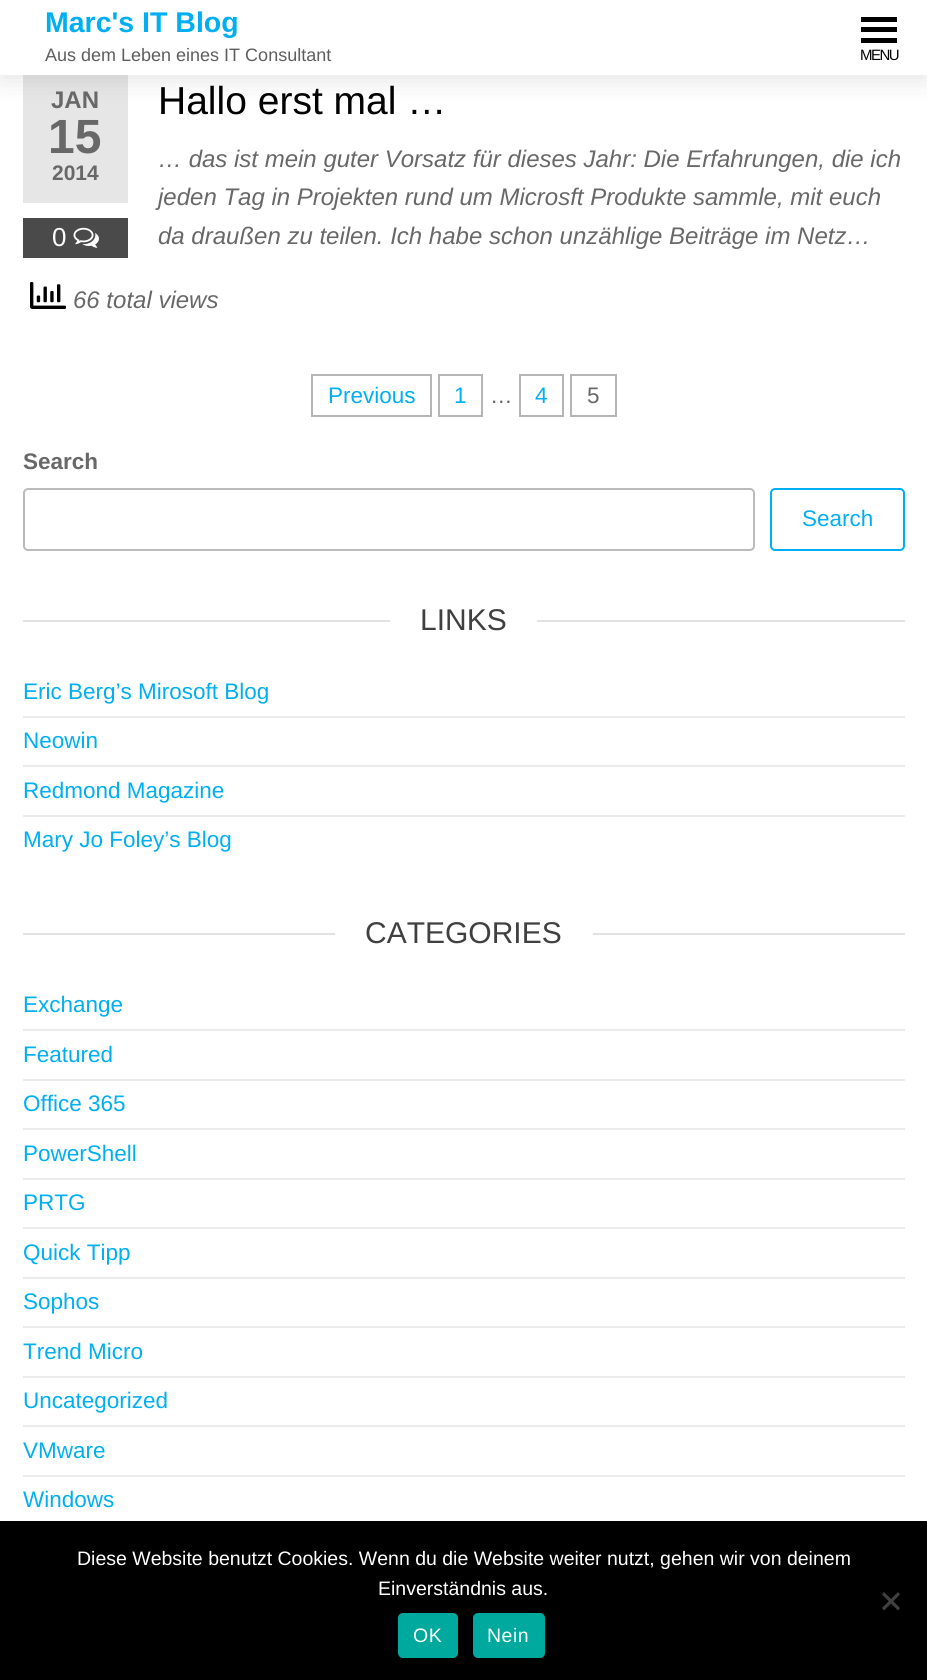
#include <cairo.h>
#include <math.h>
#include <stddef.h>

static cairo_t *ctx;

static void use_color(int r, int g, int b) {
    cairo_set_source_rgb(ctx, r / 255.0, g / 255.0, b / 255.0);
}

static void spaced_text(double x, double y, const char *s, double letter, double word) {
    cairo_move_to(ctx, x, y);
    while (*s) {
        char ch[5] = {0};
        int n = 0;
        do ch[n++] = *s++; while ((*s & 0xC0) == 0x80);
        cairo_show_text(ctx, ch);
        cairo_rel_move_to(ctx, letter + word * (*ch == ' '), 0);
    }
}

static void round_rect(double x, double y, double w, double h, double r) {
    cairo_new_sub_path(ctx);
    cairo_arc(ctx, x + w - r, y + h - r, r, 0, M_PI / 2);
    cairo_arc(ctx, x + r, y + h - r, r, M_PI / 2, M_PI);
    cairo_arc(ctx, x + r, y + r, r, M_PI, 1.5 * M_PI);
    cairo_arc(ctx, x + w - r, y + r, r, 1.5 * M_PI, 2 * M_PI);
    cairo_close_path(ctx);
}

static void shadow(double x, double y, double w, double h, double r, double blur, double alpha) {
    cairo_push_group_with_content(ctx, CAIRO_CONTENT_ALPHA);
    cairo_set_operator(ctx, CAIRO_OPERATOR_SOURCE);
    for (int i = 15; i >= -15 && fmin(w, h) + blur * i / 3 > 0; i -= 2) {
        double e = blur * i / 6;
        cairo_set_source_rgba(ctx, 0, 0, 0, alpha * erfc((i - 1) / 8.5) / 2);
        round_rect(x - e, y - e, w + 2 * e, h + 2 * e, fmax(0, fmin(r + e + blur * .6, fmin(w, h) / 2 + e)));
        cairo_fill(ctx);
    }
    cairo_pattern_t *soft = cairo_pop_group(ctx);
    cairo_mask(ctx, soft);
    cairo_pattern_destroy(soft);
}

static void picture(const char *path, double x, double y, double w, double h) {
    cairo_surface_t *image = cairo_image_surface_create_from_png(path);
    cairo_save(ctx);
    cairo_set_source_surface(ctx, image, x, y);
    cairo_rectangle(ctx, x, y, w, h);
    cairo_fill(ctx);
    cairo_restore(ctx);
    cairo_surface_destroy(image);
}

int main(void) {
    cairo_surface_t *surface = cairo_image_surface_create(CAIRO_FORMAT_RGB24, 927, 1680);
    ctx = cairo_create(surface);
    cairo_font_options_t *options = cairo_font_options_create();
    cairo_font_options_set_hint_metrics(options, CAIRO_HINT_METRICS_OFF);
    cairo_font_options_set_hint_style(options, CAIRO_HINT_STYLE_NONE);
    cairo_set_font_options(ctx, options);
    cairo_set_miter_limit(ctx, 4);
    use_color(255, 255, 255);
    cairo_paint(ctx);
    use_color(230, 230, 230);
    cairo_rectangle(ctx, 23, 75, 105, 128);
    cairo_fill(ctx);
    use_color(0, 0, 0);
    shadow(0, 6, 927, 75, 0, 12, 0.1);
    use_color(255, 255, 255);
    cairo_rectangle(ctx, 0, 0, 927, 75);
    cairo_fill(ctx);
    cairo_select_font_face(ctx, "Liberation Sans", CAIRO_FONT_SLANT_NORMAL, CAIRO_FONT_WEIGHT_BOLD);
    cairo_set_font_size(ctx, 28.5);
    use_color(0, 175, 242);
    cairo_move_to(ctx, 45, 32);
    cairo_show_text(ctx, "Marc's IT Blog");
    cairo_select_font_face(ctx, "Liberation Sans", CAIRO_FONT_SLANT_NORMAL, CAIRO_FONT_WEIGHT_NORMAL);
    cairo_set_font_size(ctx, 18);
    use_color(94, 94, 94);
    cairo_move_to(ctx, 45, 61);
    cairo_show_text(ctx, "Aus dem Leben eines IT Consultant");
    use_color(0, 0, 0);
    cairo_rectangle(ctx, 861, 17, 36, 5);
    cairo_fill(ctx);
    cairo_rectangle(ctx, 861, 27, 36, 5);
    cairo_fill(ctx);
    cairo_rectangle(ctx, 861, 38, 36, 5);
    cairo_fill(ctx);
    cairo_set_font_size(ctx, 15);
    spaced_text(860, 60, "MENU", -1.5, 0);
    cairo_select_font_face(ctx, "Liberation Sans", CAIRO_FONT_SLANT_NORMAL, CAIRO_FONT_WEIGHT_BOLD);
    cairo_set_font_size(ctx, 24);
    use_color(104, 104, 104);
    cairo_move_to(ctx, 51, 108);
    cairo_show_text(ctx, "JAN");
    cairo_set_font_size(ctx, 48);
    cairo_move_to(ctx, 48, 153);
    cairo_show_text(ctx, "15");
    cairo_set_font_size(ctx, 21);
    cairo_move_to(ctx, 52, 180);
    cairo_show_text(ctx, "2014");
    use_color(74, 74, 74);
    cairo_rectangle(ctx, 23, 218, 105, 40);
    cairo_fill(ctx);
    cairo_select_font_face(ctx, "Liberation Sans", CAIRO_FONT_SLANT_NORMAL, CAIRO_FONT_WEIGHT_NORMAL);
    cairo_set_font_size(ctx, 26);
    use_color(255, 255, 255);
    cairo_move_to(ctx, 52, 246);
    cairo_show_text(ctx, "0");
    picture("img1.png", 73, 227, 26, 21);
    cairo_set_font_size(ctx, 39);
    use_color(0, 0, 0);
    cairo_move_to(ctx, 158, 114);
    cairo_show_text(ctx, "Hallo erst mal …");
    cairo_select_font_face(ctx, "Liberation Sans", CAIRO_FONT_SLANT_ITALIC, CAIRO_FONT_WEIGHT_NORMAL);
    cairo_set_font_size(ctx, 24);
    use_color(104, 104, 104);
    cairo_move_to(ctx, 158, 167);
    cairo_show_text(ctx, "… das ist mein guter Vorsatz für dieses Jahr: Die Erfahrungen, die ich");
    cairo_move_to(ctx, 158, 205);
    cairo_show_text(ctx, "jeden Tag in Projekten rund um Microsft Produkte sammle, mit euch");
    cairo_move_to(ctx, 158, 244);
    cairo_show_text(ctx, "da draußen zu teilen. Ich habe schon unzählige Beiträge im Netz…");
    picture("img2.png", 30, 282, 36, 27);
    cairo_move_to(ctx, 73, 308);
    cairo_show_text(ctx, "66 total views");
    cairo_rectangle(ctx, 312, 375, 119, 41);
    use_color(181, 181, 181);
    cairo_stroke(ctx);
    cairo_select_font_face(ctx, "Liberation Sans", CAIRO_FONT_SLANT_NORMAL, CAIRO_FONT_WEIGHT_NORMAL);
    cairo_set_font_size(ctx, 22.5);
    use_color(0, 175, 242);
    cairo_move_to(ctx, 328, 403);
    cairo_show_text(ctx, "Previous");
    cairo_rectangle(ctx, 439, 375, 43, 41);
    use_color(181, 181, 181);
    cairo_stroke(ctx);
    use_color(0, 175, 242);
    cairo_move_to(ctx, 454, 403);
    cairo_show_text(ctx, "1");
    use_color(104, 104, 104);
    cairo_move_to(ctx, 490, 403);
    cairo_show_text(ctx, "…");
    cairo_rectangle(ctx, 520, 375, 43, 41);
    use_color(181, 181, 181);
    cairo_stroke(ctx);
    use_color(0, 175, 242);
    cairo_move_to(ctx, 535, 403);
    cairo_show_text(ctx, "4");
    cairo_rectangle(ctx, 571, 375, 45, 41);
    use_color(181, 181, 181);
    cairo_stroke(ctx);
    use_color(104, 104, 104);
    cairo_move_to(ctx, 587, 403);
    cairo_show_text(ctx, "5");
    cairo_select_font_face(ctx, "Liberation Sans", CAIRO_FONT_SLANT_NORMAL, CAIRO_FONT_WEIGHT_BOLD);
    cairo_move_to(ctx, 23, 469);
    cairo_show_text(ctx, "Search");
    round_rect(24, 489, 730, 61, 4);
    use_color(187, 187, 187);
    cairo_stroke(ctx);
    round_rect(771, 489, 133, 61, 4);
    use_color(0, 175, 242);
    cairo_stroke(ctx);
    cairo_select_font_face(ctx, "Liberation Sans", CAIRO_FONT_SLANT_NORMAL, CAIRO_FONT_WEIGHT_NORMAL);
    cairo_move_to(ctx, 802, 526);
    cairo_show_text(ctx, "Search");
    use_color(226, 226, 226);
    cairo_rectangle(ctx, 23, 620, 882, 2);
    cairo_fill(ctx);
    use_color(255, 255, 255);
    cairo_rectangle(ctx, 390, 620, 147, 2);
    cairo_fill(ctx);
    cairo_set_font_size(ctx, 30);
    use_color(64, 64, 64);
    cairo_move_to(ctx, 420, 630);
    cairo_show_text(ctx, "LINKS");
    use_color(235, 235, 235);
    cairo_rectangle(ctx, 23, 716, 882, 2);
    cairo_fill(ctx);
    cairo_set_font_size(ctx, 22.5);
    use_color(0, 175, 242);
    cairo_move_to(ctx, 23, 699);
    cairo_show_text(ctx, "Eric Berg’s Mirosoft Blog");
    use_color(235, 235, 235);
    cairo_rectangle(ctx, 23, 765, 882, 2);
    cairo_fill(ctx);
    use_color(0, 175, 242);
    cairo_move_to(ctx, 23, 748);
    cairo_show_text(ctx, "Neowin");
    use_color(235, 235, 235);
    cairo_rectangle(ctx, 23, 815, 882, 2);
    cairo_fill(ctx);
    use_color(0, 175, 242);
    cairo_move_to(ctx, 23, 798);
    cairo_show_text(ctx, "Redmond Magazine");
    cairo_move_to(ctx, 23, 847);
    cairo_show_text(ctx, "Mary Jo Foley’s Blog");
    use_color(226, 226, 226);
    cairo_rectangle(ctx, 23, 933, 882, 2);
    cairo_fill(ctx);
    use_color(255, 255, 255);
    cairo_rectangle(ctx, 335, 933, 258, 2);
    cairo_fill(ctx);
    cairo_set_font_size(ctx, 30);
    use_color(64, 64, 64);
    cairo_move_to(ctx, 365, 943);
    cairo_show_text(ctx, "CATEGORIES");
    use_color(235, 235, 235);
    cairo_rectangle(ctx, 23, 1029, 882, 2);
    cairo_fill(ctx);
    cairo_set_font_size(ctx, 22.5);
    use_color(0, 175, 242);
    cairo_move_to(ctx, 23, 1012);
    cairo_show_text(ctx, "Exchange");
    use_color(235, 235, 235);
    cairo_rectangle(ctx, 23, 1079, 882, 2);
    cairo_fill(ctx);
    use_color(0, 175, 242);
    cairo_move_to(ctx, 23, 1062);
    cairo_show_text(ctx, "Featured");
    use_color(235, 235, 235);
    cairo_rectangle(ctx, 23, 1128, 882, 2);
    cairo_fill(ctx);
    use_color(0, 175, 242);
    cairo_move_to(ctx, 23, 1111);
    cairo_show_text(ctx, "Office 365");
    use_color(235, 235, 235);
    cairo_rectangle(ctx, 23, 1178, 882, 2);
    cairo_fill(ctx);
    use_color(0, 175, 242);
    cairo_move_to(ctx, 23, 1161);
    cairo_show_text(ctx, "PowerShell");
    use_color(235, 235, 235);
    cairo_rectangle(ctx, 23, 1227, 882, 2);
    cairo_fill(ctx);
    use_color(0, 175, 242);
    cairo_move_to(ctx, 23, 1210);
    cairo_show_text(ctx, "PRTG");
    use_color(235, 235, 235);
    cairo_rectangle(ctx, 23, 1277, 882, 2);
    cairo_fill(ctx);
    use_color(0, 175, 242);
    cairo_move_to(ctx, 23, 1260);
    cairo_show_text(ctx, "Quick Tipp");
    use_color(235, 235, 235);
    cairo_rectangle(ctx, 23, 1326, 882, 2);
    cairo_fill(ctx);
    use_color(0, 175, 242);
    cairo_move_to(ctx, 23, 1309);
    cairo_show_text(ctx, "Sophos");
    use_color(235, 235, 235);
    cairo_rectangle(ctx, 23, 1376, 882, 2);
    cairo_fill(ctx);
    use_color(0, 175, 242);
    cairo_move_to(ctx, 23, 1359);
    cairo_show_text(ctx, "Trend Micro");
    use_color(235, 235, 235);
    cairo_rectangle(ctx, 23, 1425, 882, 2);
    cairo_fill(ctx);
    use_color(0, 175, 242);
    cairo_move_to(ctx, 23, 1408);
    cairo_show_text(ctx, "Uncategorized");
    use_color(235, 235, 235);
    cairo_rectangle(ctx, 23, 1475, 882, 2);
    cairo_fill(ctx);
    use_color(0, 175, 242);
    cairo_move_to(ctx, 23, 1458);
    cairo_show_text(ctx, "VMware");
    cairo_move_to(ctx, 23, 1507);
    cairo_show_text(ctx, "Windows");
    use_color(0, 0, 0);
    cairo_rectangle(ctx, 0, 1521, 927, 159);
    cairo_fill(ctx);
    cairo_set_font_size(ctx, 19.5);
    use_color(255, 255, 255);
    cairo_move_to(ctx, 77, 1565);
    cairo_show_text(ctx, "Diese Website benutzt Cookies. Wenn du die Website weiter nutzt, gehen wir von deinem");
    cairo_move_to(ctx, 378, 1595);
    cairo_show_text(ctx, "Einverständnis aus.");
    use_color(64, 64, 64);
    cairo_new_path(ctx);
    cairo_move_to(ctx, 898, 1592);
    cairo_line_to(ctx, 900, 1594.5);
    cairo_line_to(ctx, 884, 1610.5);
    cairo_line_to(ctx, 882, 1608);
    cairo_close_path(ctx);
    cairo_fill(ctx);
    cairo_new_path(ctx);
    cairo_move_to(ctx, 882, 1594.5);
    cairo_line_to(ctx, 884, 1592);
    cairo_line_to(ctx, 900, 1608);
    cairo_line_to(ctx, 898, 1610.5);
    cairo_close_path(ctx);
    cairo_fill(ctx);
    use_color(0, 169, 157);
    round_rect(398, 1613, 60, 45, 5);
    cairo_fill(ctx);
    use_color(255, 255, 255);
    spaced_text(413, 1642, "OK", 0.5, 0);
    use_color(0, 169, 157);
    round_rect(473, 1613, 72, 45, 5);
    cairo_fill(ctx);
    use_color(255, 255, 255);
    spaced_text(487, 1642, "Nein", 0.5, 0);
    cairo_surface_write_to_png(surface, "result.png");
    cairo_font_options_destroy(options);
    cairo_destroy(ctx);
    cairo_surface_destroy(surface);
    return 0;
}
